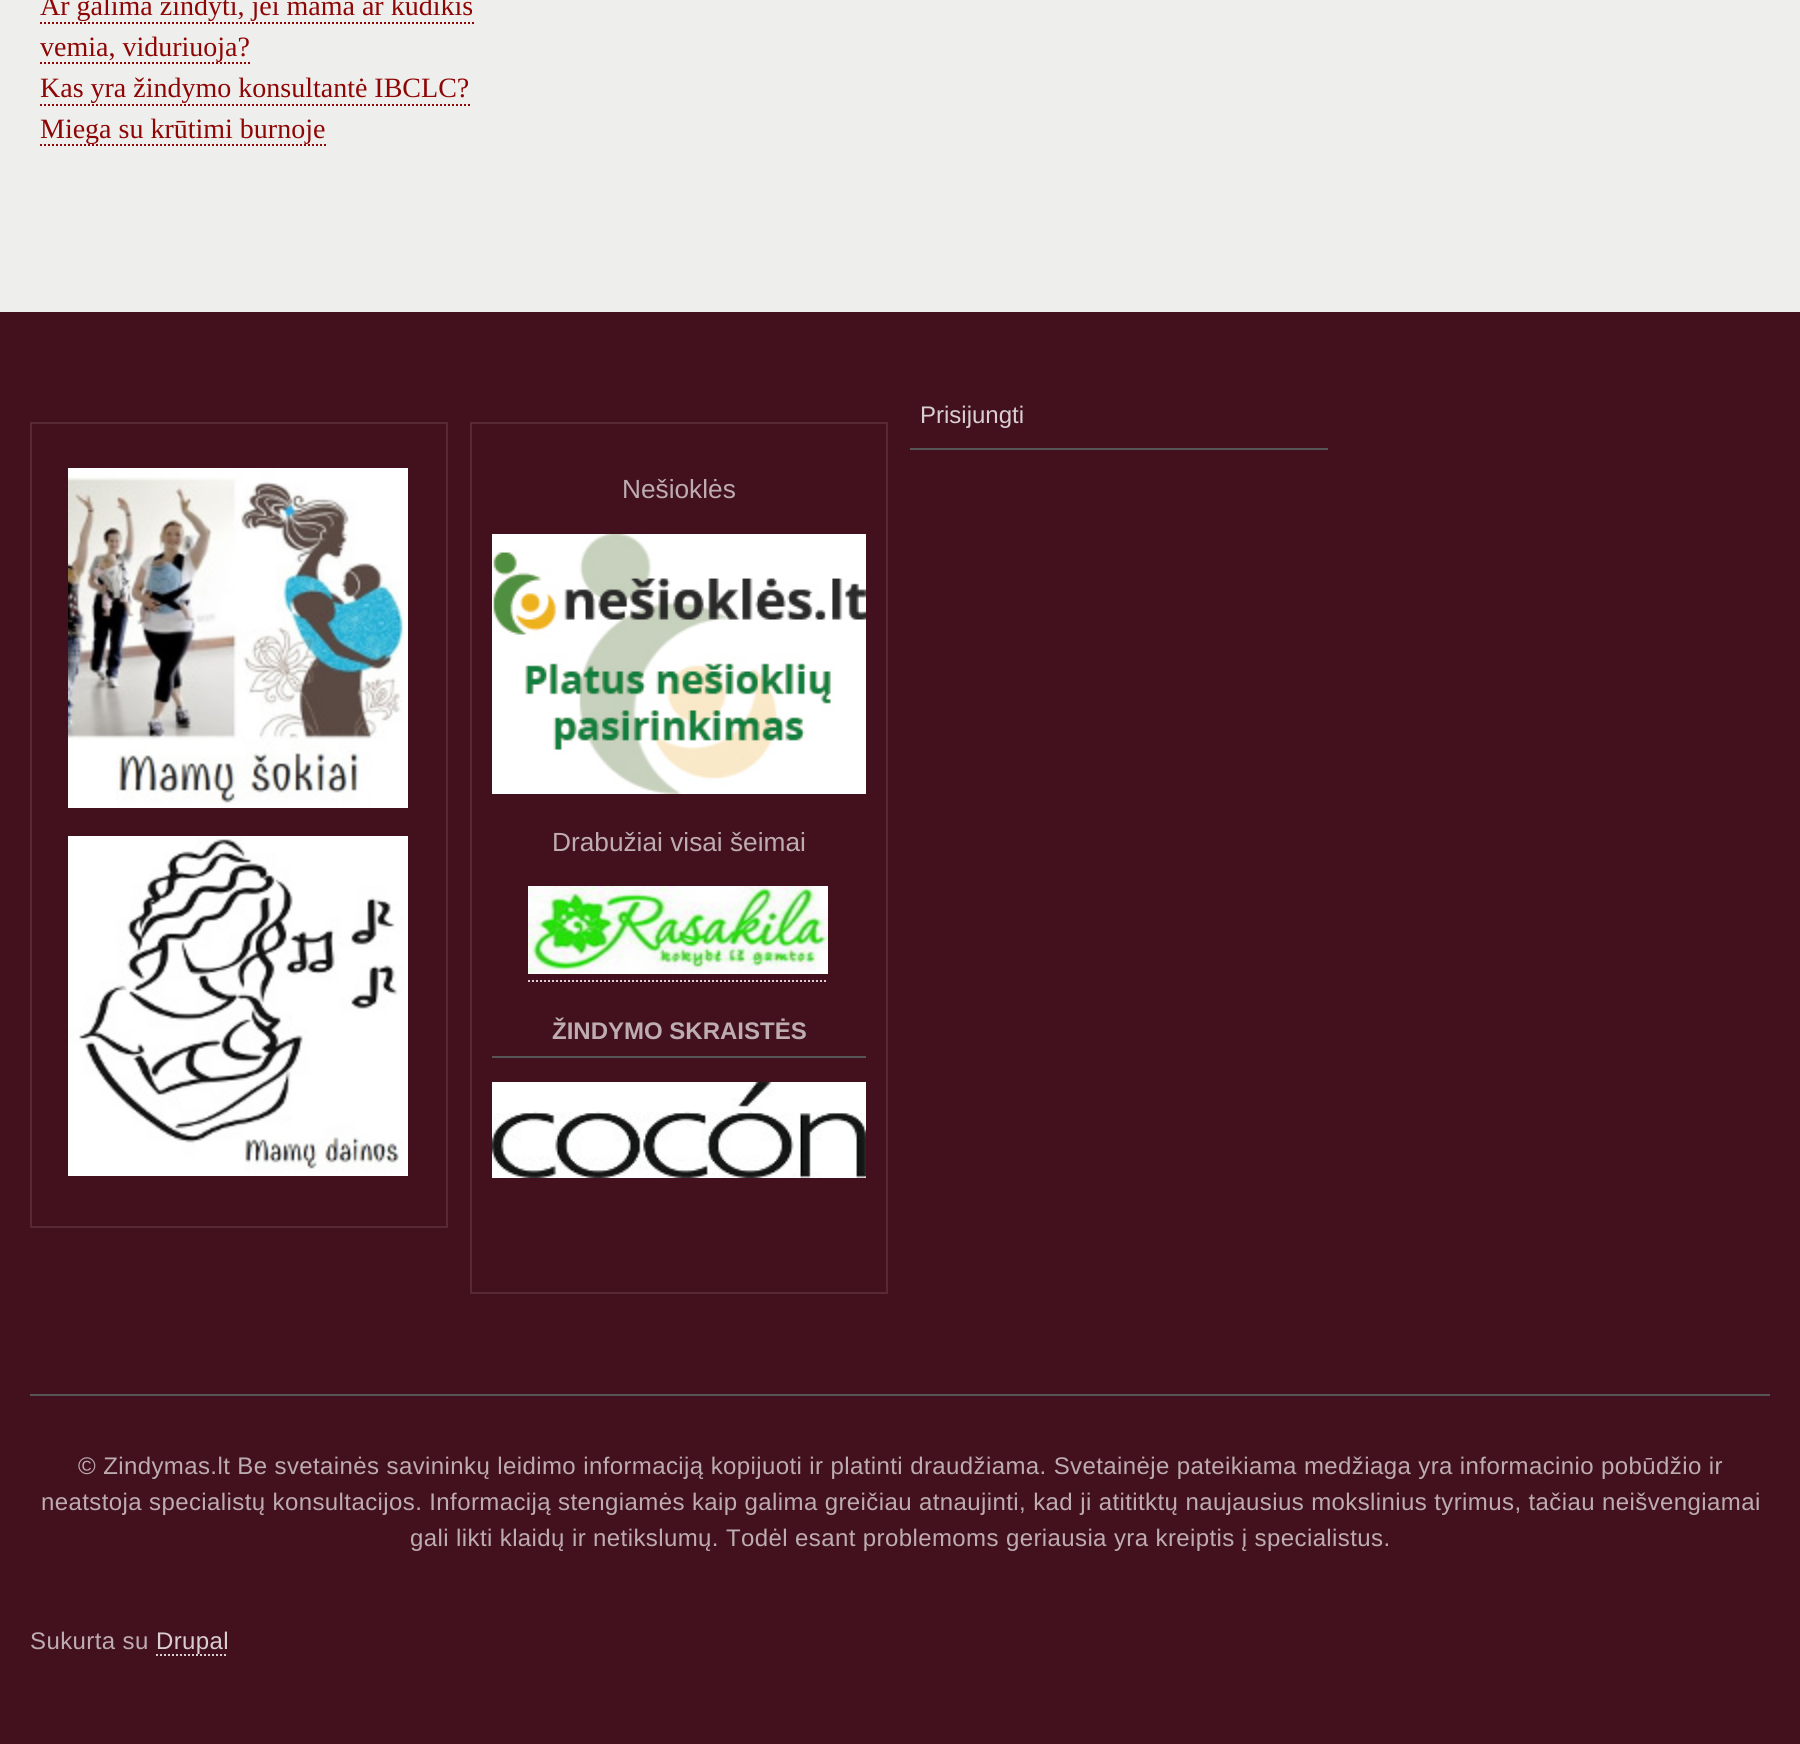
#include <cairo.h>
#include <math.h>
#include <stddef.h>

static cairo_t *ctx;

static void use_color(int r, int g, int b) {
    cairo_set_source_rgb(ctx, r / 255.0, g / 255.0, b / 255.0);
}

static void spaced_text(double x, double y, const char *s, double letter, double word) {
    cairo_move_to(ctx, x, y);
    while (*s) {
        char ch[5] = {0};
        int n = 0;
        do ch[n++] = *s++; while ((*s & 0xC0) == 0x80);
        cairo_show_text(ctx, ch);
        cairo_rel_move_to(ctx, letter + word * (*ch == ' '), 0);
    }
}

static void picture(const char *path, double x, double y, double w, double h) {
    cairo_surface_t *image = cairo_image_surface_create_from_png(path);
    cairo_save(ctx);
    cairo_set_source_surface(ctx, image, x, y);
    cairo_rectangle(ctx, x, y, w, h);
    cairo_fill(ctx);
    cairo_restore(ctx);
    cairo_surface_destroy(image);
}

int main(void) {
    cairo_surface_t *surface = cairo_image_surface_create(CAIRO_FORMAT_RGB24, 1800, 1744);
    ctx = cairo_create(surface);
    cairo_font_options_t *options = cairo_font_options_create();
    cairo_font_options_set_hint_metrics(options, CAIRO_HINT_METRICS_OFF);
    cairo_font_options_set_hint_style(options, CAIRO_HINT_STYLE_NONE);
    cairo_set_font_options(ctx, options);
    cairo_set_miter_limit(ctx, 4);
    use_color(238, 239, 236);
    cairo_paint(ctx);
    cairo_select_font_face(ctx, "Liberation Serif", CAIRO_FONT_SLANT_NORMAL, CAIRO_FONT_WEIGHT_NORMAL);
    cairo_set_font_size(ctx, 28);
    use_color(142, 5, 5);
    cairo_move_to(ctx, 40, 15);
    cairo_show_text(ctx, "Ar galima žindyti, jei mama ar kūdikis");
    cairo_new_path(ctx);
    cairo_move_to(ctx, 40, 23);
    cairo_line_to(ctx, 474, 23);
    cairo_set_dash(ctx, (double[]){2, 2}, 2, 0);
    cairo_stroke(ctx);
    cairo_move_to(ctx, 40, 56);
    cairo_show_text(ctx, "vemia, viduriuoja?");
    cairo_new_path(ctx);
    cairo_move_to(ctx, 40, 63);
    cairo_line_to(ctx, 250, 63);
    cairo_stroke(ctx);
    cairo_move_to(ctx, 40, 97);
    cairo_show_text(ctx, "Kas yra žindymo konsultantė IBCLC?");
    cairo_new_path(ctx);
    cairo_move_to(ctx, 40, 105);
    cairo_line_to(ctx, 470, 105);
    cairo_stroke(ctx);
    cairo_new_path(ctx);
    cairo_move_to(ctx, 40, 145);
    cairo_line_to(ctx, 326, 145);
    cairo_stroke(ctx);
    cairo_move_to(ctx, 40, 138);
    cairo_show_text(ctx, "Miega su krūtimi burnoje");
    use_color(67, 17, 29);
    cairo_rectangle(ctx, 0, 312, 1800, 1432);
    cairo_fill(ctx);
    use_color(85, 85, 85);
    cairo_rectangle(ctx, 910, 448, 418, 2);
    cairo_fill(ctx);
    cairo_select_font_face(ctx, "Liberation Sans", CAIRO_FONT_SLANT_NORMAL, CAIRO_FONT_WEIGHT_NORMAL);
    cairo_set_font_size(ctx, 24);
    use_color(217, 207, 210);
    cairo_move_to(ctx, 920, 423);
    cairo_show_text(ctx, "Prisijungti");
    cairo_rectangle(ctx, 31, 423, 416, 804);
    use_color(86, 41, 52);
    cairo_set_dash(ctx, NULL, 0, 0);
    cairo_stroke(ctx);
    picture("img1.png", 68, 468, 340, 340);
    picture("img2.png", 68, 836, 340, 340);
    cairo_rectangle(ctx, 471, 423, 416, 870);
    cairo_stroke(ctx);
    cairo_set_font_size(ctx, 26.25);
    use_color(189, 172, 176);
    cairo_move_to(ctx, 622, 498);
    cairo_show_text(ctx, "Nešioklės");
    picture("img3.png", 492, 534, 374, 260);
    cairo_move_to(ctx, 552, 851);
    cairo_show_text(ctx, "Drabužiai visai šeimai");
    picture("img4.png", 528, 886, 300, 88);
    cairo_new_path(ctx);
    cairo_move_to(ctx, 528, 981);
    cairo_line_to(ctx, 828, 981);
    use_color(217, 207, 210);
    cairo_set_dash(ctx, (double[]){2, 2}, 2, 0);
    cairo_stroke(ctx);
    use_color(85, 85, 85);
    cairo_rectangle(ctx, 492, 1056, 374, 2);
    cairo_fill(ctx);
    cairo_select_font_face(ctx, "Liberation Sans", CAIRO_FONT_SLANT_NORMAL, CAIRO_FONT_WEIGHT_BOLD);
    cairo_set_font_size(ctx, 24);
    use_color(189, 172, 176);
    cairo_move_to(ctx, 552, 1039);
    cairo_show_text(ctx, "ŽINDYMO SKRAISTĖS");
    picture("img5.png", 492, 1082, 374, 96);
    use_color(85, 85, 85);
    cairo_rectangle(ctx, 30, 1394, 1740, 2);
    cairo_fill(ctx);
    cairo_select_font_face(ctx, "Liberation Sans", CAIRO_FONT_SLANT_NORMAL, CAIRO_FONT_WEIGHT_NORMAL);
    use_color(189, 172, 176);
    spaced_text(78, 1474, "© Zindymas.lt Be svetainės savininkų leidimo informaciją kopijuoti ir platinti draudžiama. Svetainėje pateikiama medžiaga yra informacinio pobūdžio ir", 0.4, 0);
    spaced_text(41, 1510, "neatstoja specialistų konsultacijos. Informaciją stengiamės kaip galima greičiau atnaujinti, kad ji atititktų naujausius mokslinius tyrimus, tačiau neišvengiamai", 0.4, 0);
    spaced_text(410, 1546, "gali likti klaidų ir netikslumų. Todėl esant problemoms geriausia yra kreiptis į specialistus.", 0.4, 0);
    spaced_text(30, 1649, "Sukurta su", 0.4, 0);
    use_color(217, 207, 210);
    spaced_text(156, 1649, "Drupal", 0.4, 0);
    cairo_new_path(ctx);
    cairo_move_to(ctx, 156, 1655);
    cairo_line_to(ctx, 228, 1655);
    cairo_stroke(ctx);
    cairo_surface_write_to_png(surface, "result.png");
    cairo_font_options_destroy(options);
    cairo_destroy(ctx);
    cairo_surface_destroy(surface);
    return 0;
}
